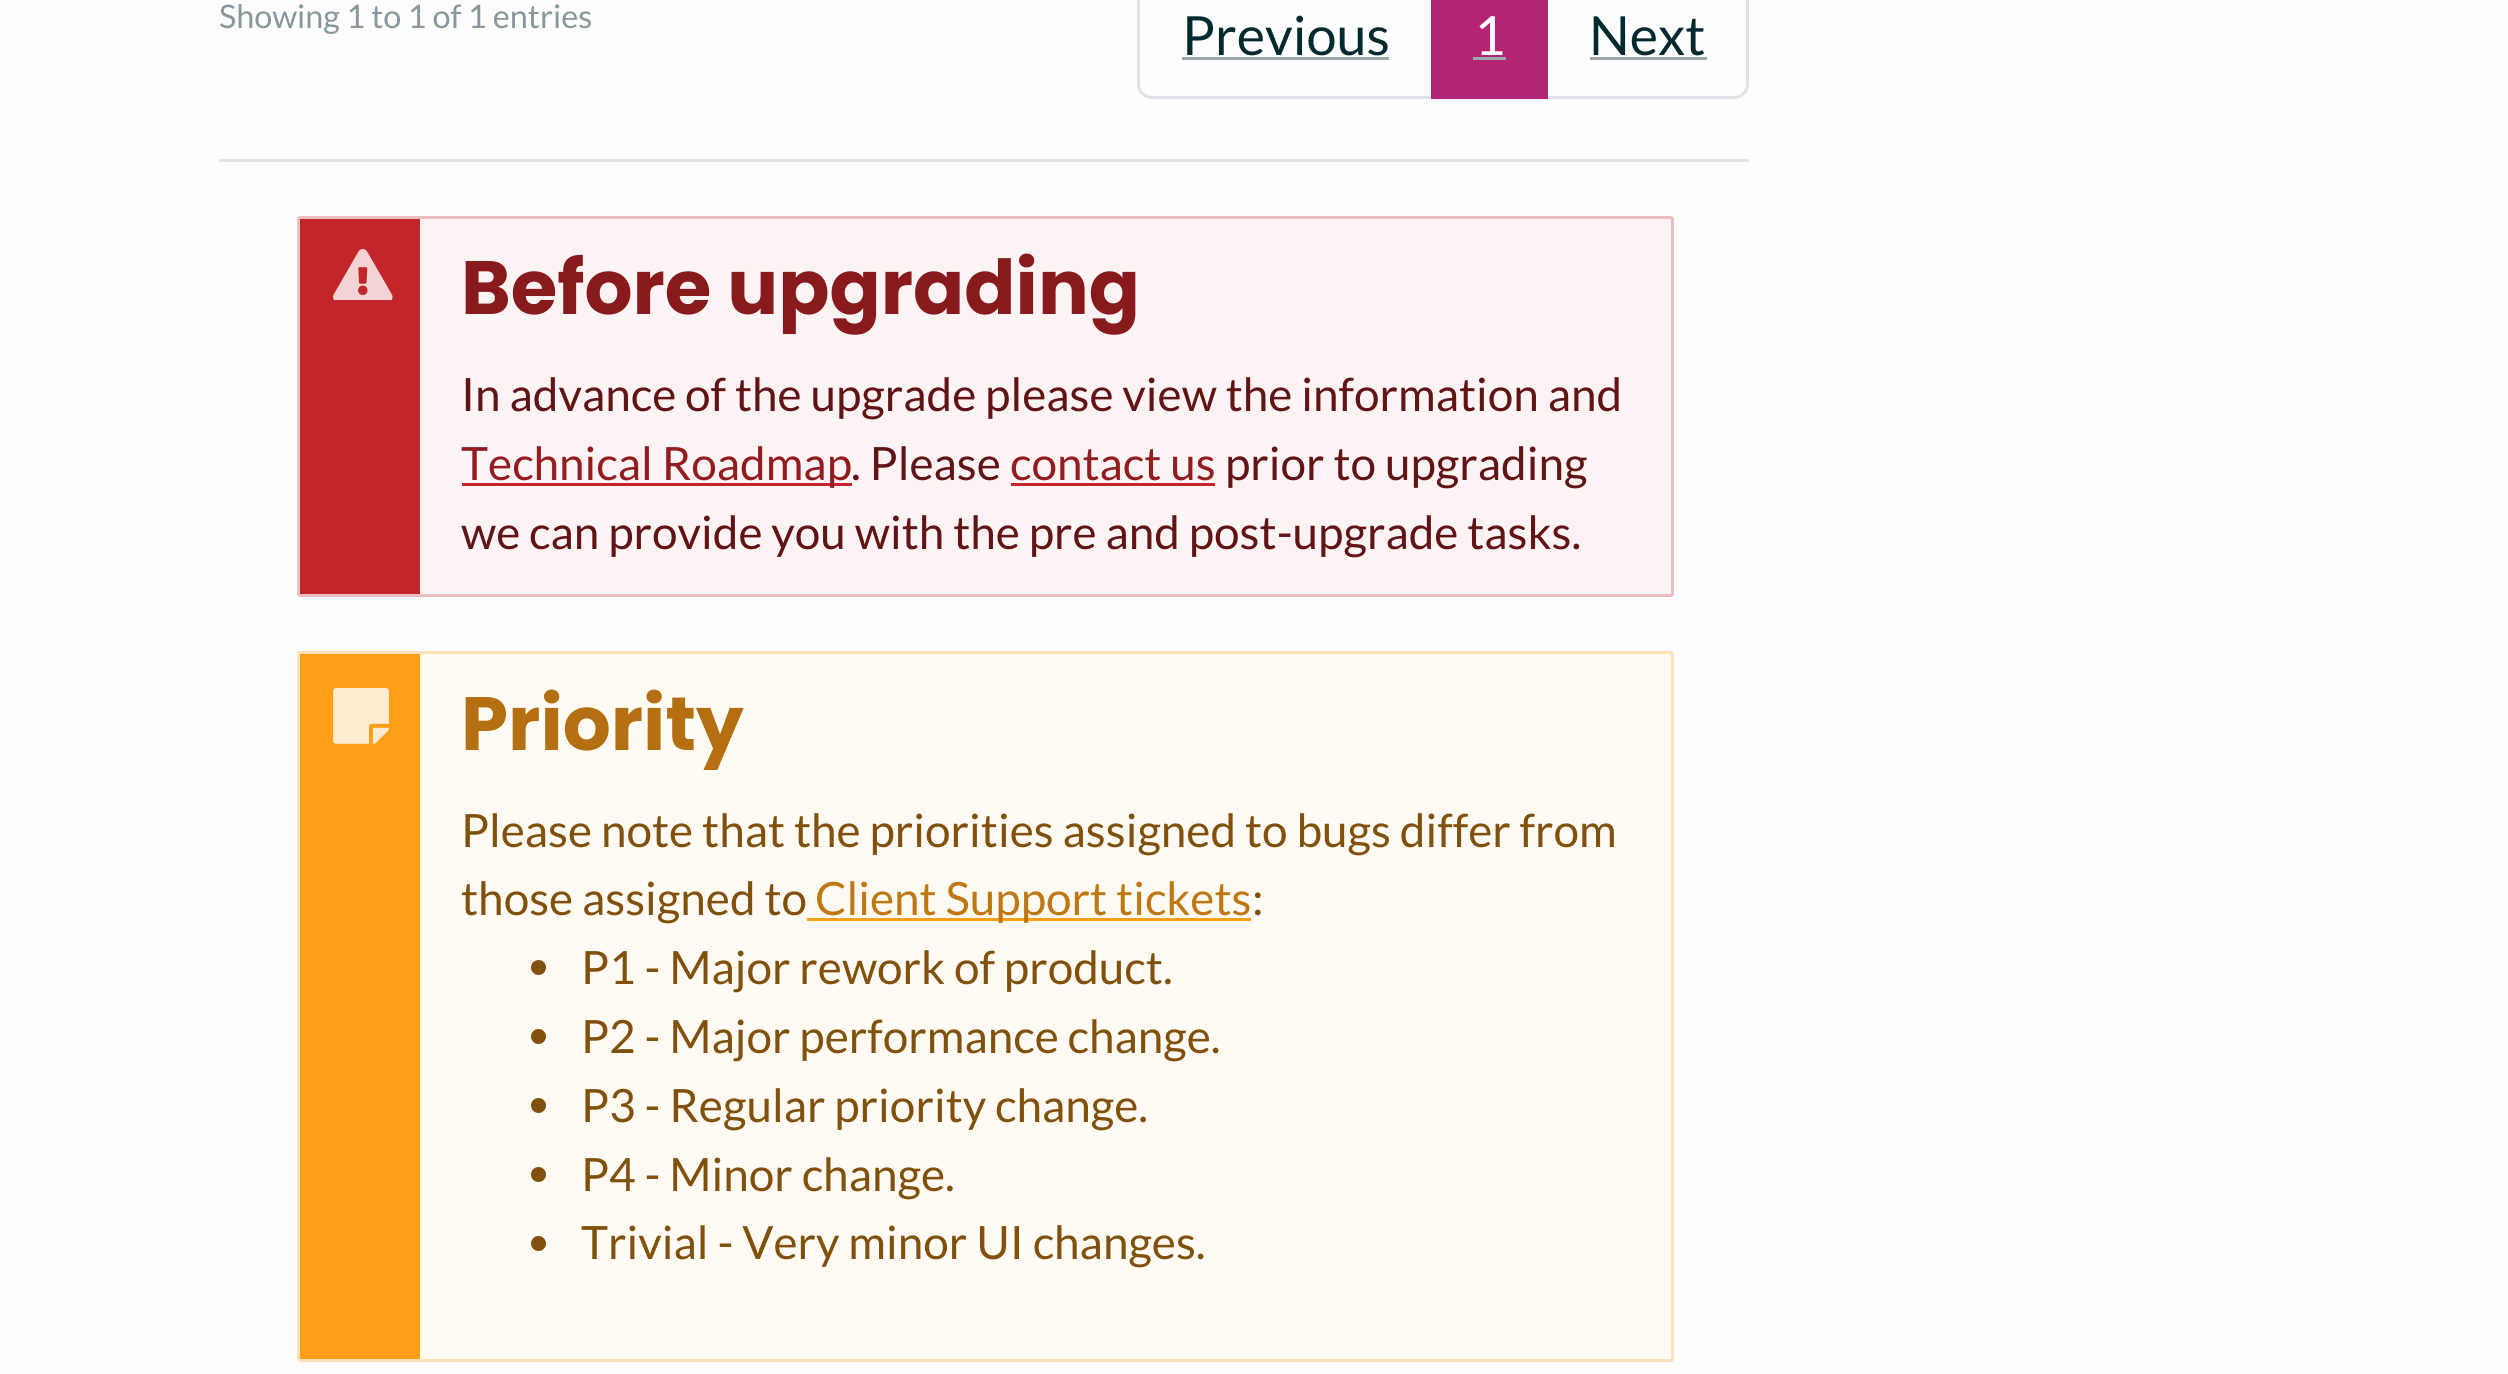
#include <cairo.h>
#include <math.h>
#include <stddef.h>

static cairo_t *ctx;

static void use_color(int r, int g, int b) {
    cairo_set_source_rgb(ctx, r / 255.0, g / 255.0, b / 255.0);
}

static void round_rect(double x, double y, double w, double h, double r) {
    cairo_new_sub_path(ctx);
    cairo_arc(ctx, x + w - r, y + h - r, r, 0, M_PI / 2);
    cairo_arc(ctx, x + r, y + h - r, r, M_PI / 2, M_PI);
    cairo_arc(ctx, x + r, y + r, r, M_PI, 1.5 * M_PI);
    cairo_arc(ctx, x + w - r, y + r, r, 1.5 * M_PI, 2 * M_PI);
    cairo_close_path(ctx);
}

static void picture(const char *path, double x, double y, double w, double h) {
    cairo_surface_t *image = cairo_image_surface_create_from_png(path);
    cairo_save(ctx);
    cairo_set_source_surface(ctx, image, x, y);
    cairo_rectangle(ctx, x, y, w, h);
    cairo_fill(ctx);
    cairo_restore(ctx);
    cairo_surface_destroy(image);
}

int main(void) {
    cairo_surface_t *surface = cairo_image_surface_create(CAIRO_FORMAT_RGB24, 2508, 1374);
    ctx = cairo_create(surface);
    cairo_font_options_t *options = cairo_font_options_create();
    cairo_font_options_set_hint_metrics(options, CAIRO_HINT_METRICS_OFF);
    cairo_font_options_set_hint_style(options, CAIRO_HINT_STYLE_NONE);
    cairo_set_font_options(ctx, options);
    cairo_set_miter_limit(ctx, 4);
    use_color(254, 253, 254);
    cairo_paint(ctx);
    cairo_select_font_face(ctx, "Lato", CAIRO_FONT_SLANT_NORMAL, CAIRO_FONT_WEIGHT_NORMAL);
    cairo_set_font_size(ctx, 32.4);
    use_color(134, 152, 155);
    cairo_move_to(ctx, 219, 28);
    cairo_show_text(ctx, "Showing 1 to 1 of 1 entries");
    cairo_new_path(ctx);
    cairo_move_to(ctx, 1152, -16.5);
    cairo_line_to(ctx, 1432.5, -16.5);
    cairo_line_to(ctx, 1432.5, 97.5);
    cairo_line_to(ctx, 1152, 97.5);
    cairo_curve_to(ctx, 1144.5, 97.5, 1138.5, 91.5, 1138.5, 84);
    cairo_line_to(ctx, 1138.5, -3);
    cairo_curve_to(ctx, 1138.5, -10.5, 1144.5, -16.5, 1152, -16.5);
    cairo_close_path(ctx);
    use_color(222, 226, 230);
    cairo_set_line_width(ctx, 3);
    cairo_stroke(ctx);
    cairo_set_font_size(ctx, 54);
    use_color(2, 41, 46);
    cairo_move_to(ctx, 1182, 55);
    cairo_show_text(ctx, "Previous");
    use_color(154, 170, 172);
    cairo_rectangle(ctx, 1182, 57, 207, 3);
    cairo_fill(ctx);
    cairo_new_path(ctx);
    cairo_move_to(ctx, 1546.5, -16.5);
    cairo_line_to(ctx, 1734, -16.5);
    cairo_curve_to(ctx, 1741.5, -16.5, 1747.5, -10.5, 1747.5, -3);
    cairo_line_to(ctx, 1747.5, 84);
    cairo_curve_to(ctx, 1747.5, 91.5, 1741.5, 97.5, 1734, 97.5);
    cairo_line_to(ctx, 1546.5, 97.5);
    cairo_close_path(ctx);
    use_color(222, 226, 230);
    cairo_stroke(ctx);
    use_color(179, 37, 115);
    cairo_rectangle(ctx, 1431, 0, 117, 99);
    cairo_fill(ctx);
    use_color(255, 255, 255);
    cairo_move_to(ctx, 1474, 55);
    cairo_show_text(ctx, "1");
    use_color(154, 170, 172);
    cairo_rectangle(ctx, 1473, 57, 33, 3);
    cairo_fill(ctx);
    use_color(2, 41, 46);
    cairo_move_to(ctx, 1589, 55);
    cairo_show_text(ctx, "Next");
    use_color(154, 170, 172);
    cairo_rectangle(ctx, 1590, 57, 117, 3);
    cairo_fill(ctx);
    use_color(229, 228, 229);
    cairo_rectangle(ctx, 219, 159, 1530, 3);
    cairo_fill(ctx);
    use_color(194, 37, 42);
    cairo_rectangle(ctx, 300, 219, 120, 375);
    cairo_fill(ctx);
    use_color(252, 244, 244);
    cairo_rectangle(ctx, 420, 219, 1251, 375);
    cairo_fill(ctx);
    picture("img1.png", 333, 249, 60, 51);
    round_rect(298.5, 217.5, 1374, 378, 1.5);
    use_color(237, 190, 191);
    cairo_stroke(ctx);
    cairo_select_font_face(ctx, "Poppins", CAIRO_FONT_SLANT_NORMAL, CAIRO_FONT_WEIGHT_BOLD);
    cairo_set_font_size(ctx, 75.5);
    use_color(136, 26, 29);
    cairo_move_to(ctx, 461, 314);
    cairo_show_text(ctx, "Before upgrading");
    cairo_select_font_face(ctx, "Lato", CAIRO_FONT_SLANT_NORMAL, CAIRO_FONT_WEIGHT_NORMAL);
    cairo_set_font_size(ctx, 45.9);
    use_color(97, 19, 21);
    cairo_move_to(ctx, 461, 411);
    cairo_show_text(ctx, "In advance of the upgrade please view the information and");
    use_color(194, 37, 42);
    cairo_rectangle(ctx, 462, 483, 390, 3);
    cairo_fill(ctx);
    use_color(146, 28, 32);
    cairo_move_to(ctx, 461, 480);
    cairo_show_text(ctx, "Technical Roadmap");
    use_color(97, 19, 21);
    cairo_move_to(ctx, 851, 480);
    cairo_show_text(ctx, ". Please");
    use_color(146, 28, 32);
    cairo_move_to(ctx, 1010, 480);
    cairo_show_text(ctx, "contact us");
    use_color(194, 37, 42);
    cairo_rectangle(ctx, 1011, 483, 204, 3);
    cairo_fill(ctx);
    use_color(97, 19, 21);
    cairo_move_to(ctx, 1225, 480);
    cairo_show_text(ctx, "prior to upgrading");
    cairo_move_to(ctx, 461, 549);
    cairo_show_text(ctx, "we can provide you with the pre and post-upgrade tasks.");
    use_color(255, 159, 24);
    cairo_rectangle(ctx, 300, 654, 120, 705);
    cairo_fill(ctx);
    use_color(255, 250, 243);
    cairo_rectangle(ctx, 420, 654, 1251, 705);
    cairo_fill(ctx);
    picture("img2.png", 333, 688, 56, 56);
    round_rect(298.5, 652.5, 1374, 708, 1.5);
    use_color(255, 226, 186);
    cairo_stroke(ctx);
    cairo_select_font_face(ctx, "Poppins", CAIRO_FONT_SLANT_NORMAL, CAIRO_FONT_WEIGHT_BOLD);
    cairo_set_font_size(ctx, 75.5);
    use_color(179, 111, 17);
    cairo_move_to(ctx, 461, 750);
    cairo_show_text(ctx, "Priority");
    cairo_select_font_face(ctx, "Lato", CAIRO_FONT_SLANT_NORMAL, CAIRO_FONT_WEIGHT_NORMAL);
    cairo_set_font_size(ctx, 45.9);
    use_color(128, 80, 12);
    cairo_move_to(ctx, 461, 847);
    cairo_show_text(ctx, "Please note that the priorities assigned to bugs differ from");
    cairo_move_to(ctx, 461, 915);
    cairo_show_text(ctx, "those assigned to");
    use_color(255, 159, 24);
    cairo_rectangle(ctx, 807, 918, 444, 3);
    cairo_fill(ctx);
    use_color(191, 119, 18);
    cairo_move_to(ctx, 815, 915);
    cairo_show_text(ctx, "Client Support tickets");
    use_color(128, 80, 12);
    cairo_move_to(ctx, 1252, 915);
    cairo_show_text(ctx, ":");
    cairo_new_path(ctx);
    cairo_arc(ctx, 538.5, 967.5, 7.5, 0, 2 * M_PI);
    cairo_fill(ctx);
    cairo_move_to(ctx, 581, 984);
    cairo_show_text(ctx, "P1 - Major rework of product.");
    cairo_new_path(ctx);
    cairo_arc(ctx, 538.5, 1036.5, 7.5, 0, 2 * M_PI);
    cairo_fill(ctx);
    cairo_move_to(ctx, 581, 1053);
    cairo_show_text(ctx, "P2 - Major performance change.");
    cairo_new_path(ctx);
    cairo_arc(ctx, 538.5, 1105.5, 7.5, 0, 2 * M_PI);
    cairo_fill(ctx);
    cairo_move_to(ctx, 581, 1122);
    cairo_show_text(ctx, "P3 - Regular priority change.");
    cairo_new_path(ctx);
    cairo_arc(ctx, 538.5, 1174.5, 7.5, 0, 2 * M_PI);
    cairo_fill(ctx);
    cairo_move_to(ctx, 581, 1191);
    cairo_show_text(ctx, "P4 - Minor change.");
    cairo_new_path(ctx);
    cairo_arc(ctx, 538.5, 1243.5, 7.5, 0, 2 * M_PI);
    cairo_fill(ctx);
    cairo_move_to(ctx, 581, 1259);
    cairo_show_text(ctx, "Trivial - Very minor UI changes.");
    cairo_surface_write_to_png(surface, "result.png");
    cairo_font_options_destroy(options);
    cairo_destroy(ctx);
    cairo_surface_destroy(surface);
    return 0;
}
